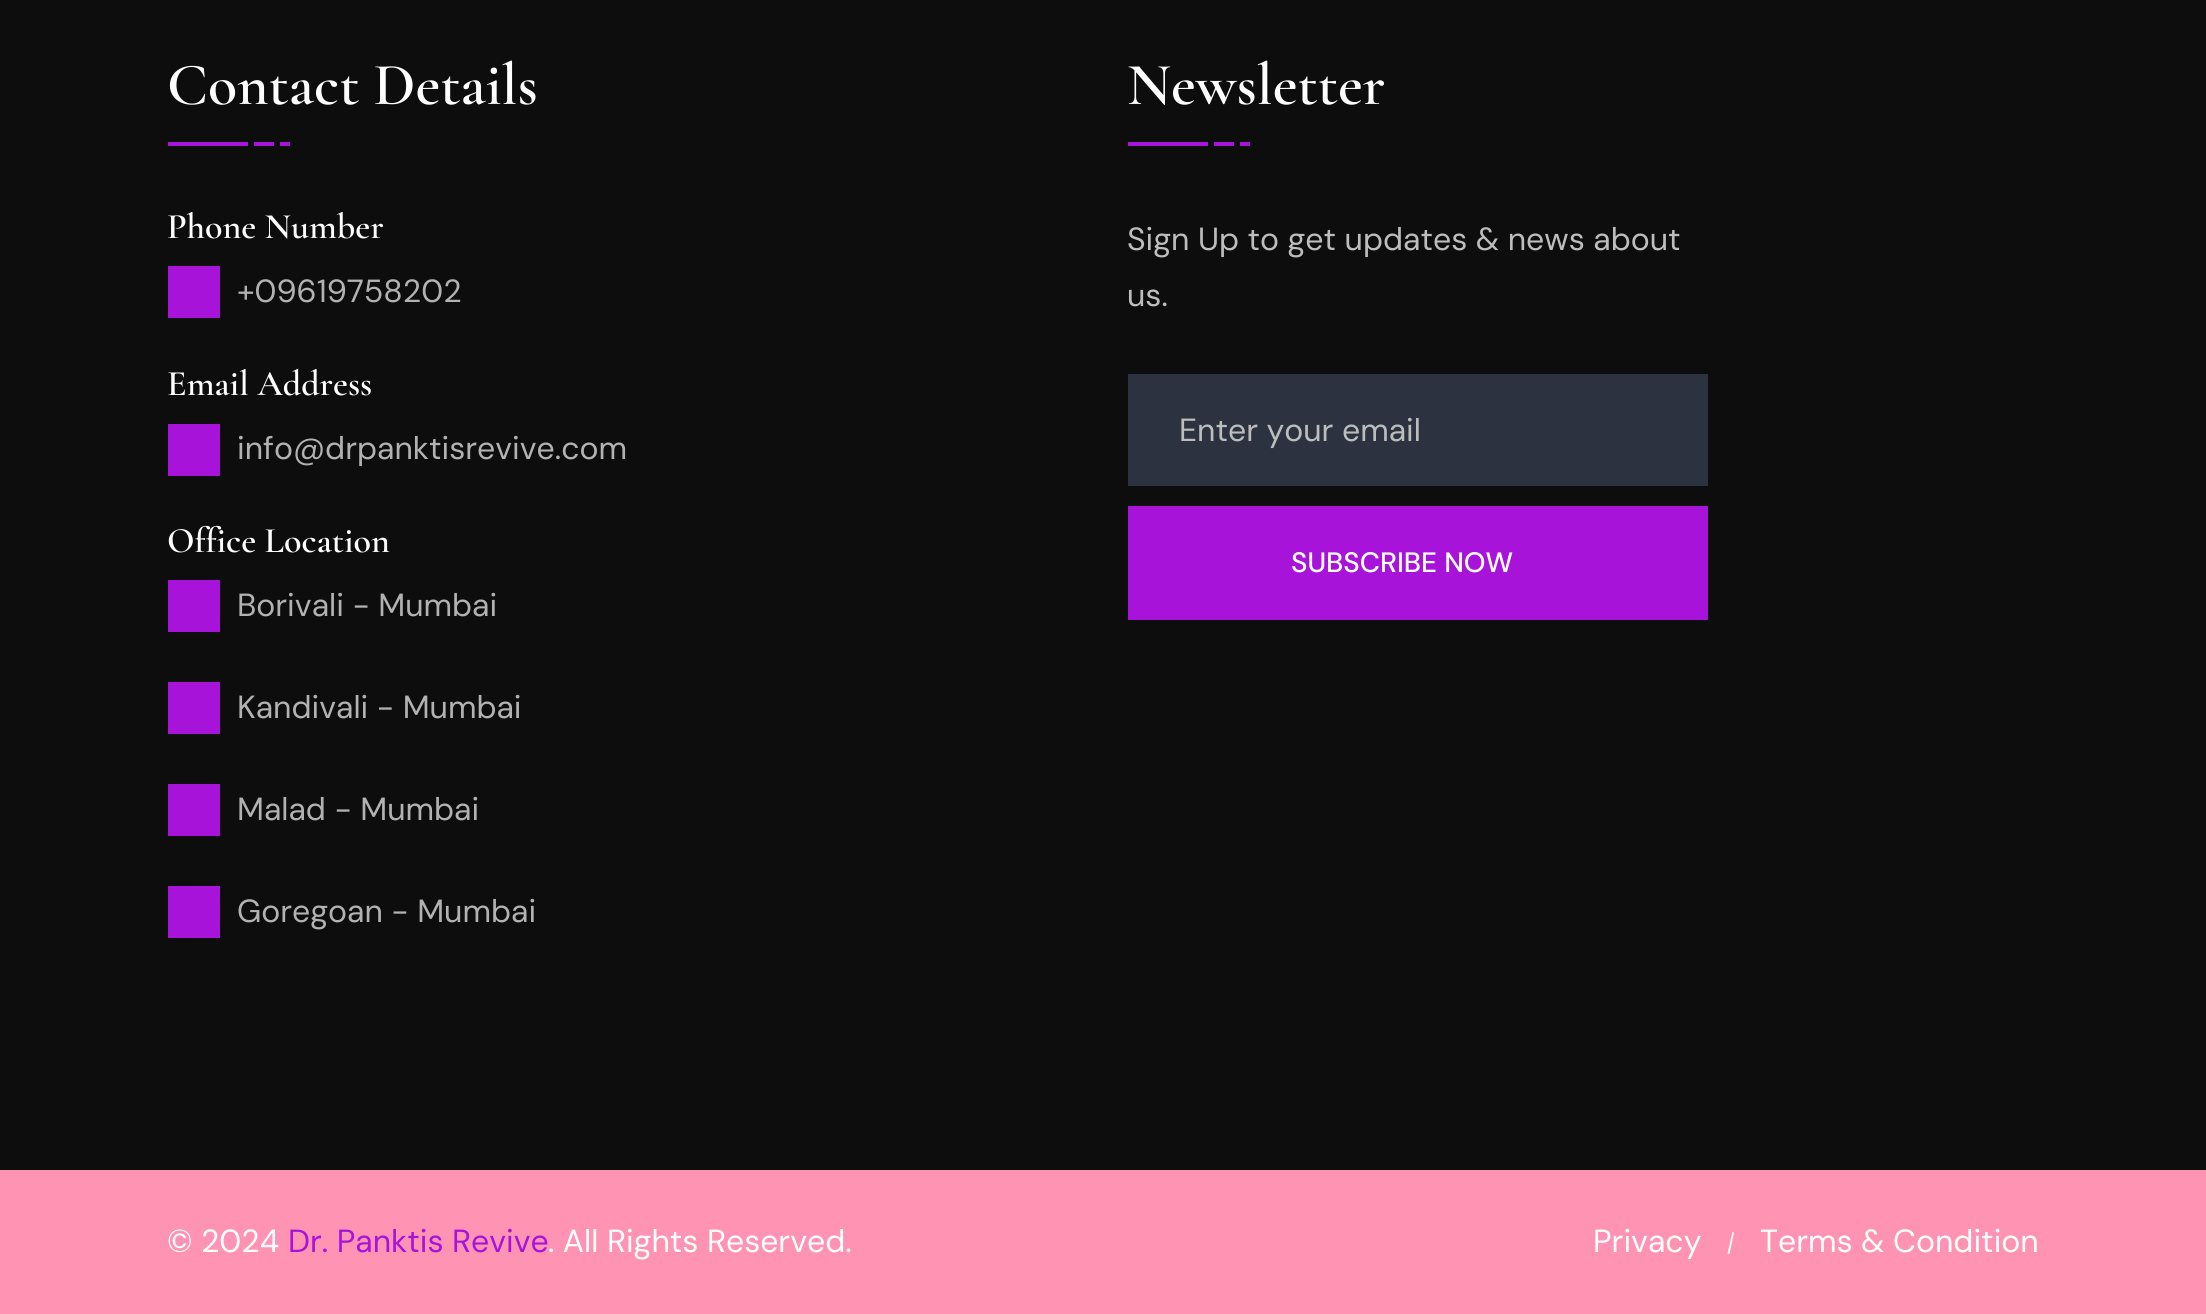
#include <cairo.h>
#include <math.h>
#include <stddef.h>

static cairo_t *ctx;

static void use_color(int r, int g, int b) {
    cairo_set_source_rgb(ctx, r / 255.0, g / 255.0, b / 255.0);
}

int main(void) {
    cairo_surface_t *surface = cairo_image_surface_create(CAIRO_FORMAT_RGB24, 2206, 1314);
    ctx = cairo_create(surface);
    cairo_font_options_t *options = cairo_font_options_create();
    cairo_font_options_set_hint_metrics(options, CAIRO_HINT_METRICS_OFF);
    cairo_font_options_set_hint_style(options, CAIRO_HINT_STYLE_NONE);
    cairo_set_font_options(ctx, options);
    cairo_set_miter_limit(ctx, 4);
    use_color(13, 13, 13);
    cairo_paint(ctx);
    cairo_select_font_face(ctx, "Cormorant Garamond SemiBold", CAIRO_FONT_SLANT_NORMAL, CAIRO_FONT_WEIGHT_NORMAL);
    cairo_set_font_size(ctx, 60);
    use_color(255, 255, 255);
    cairo_move_to(ctx, 167, 104);
    cairo_show_text(ctx, "Contact Details");
    use_color(168, 19, 217);
    cairo_rectangle(ctx, 168, 142, 122, 4);
    cairo_fill(ctx);
    cairo_rectangle(ctx, 251, 135, 26, 14);
    use_color(13, 13, 13);
    cairo_set_line_width(ctx, 6);
    cairo_stroke(ctx);
    cairo_set_font_size(ctx, 36);
    use_color(255, 255, 255);
    cairo_move_to(ctx, 167, 238);
    cairo_show_text(ctx, "Phone Number");
    use_color(168, 19, 217);
    cairo_rectangle(ctx, 168, 266, 52, 52);
    cairo_fill(ctx);
    cairo_select_font_face(ctx, "DM Sans", CAIRO_FONT_SLANT_NORMAL, CAIRO_FONT_WEIGHT_NORMAL);
    cairo_set_font_size(ctx, 32);
    use_color(178, 178, 178);
    cairo_move_to(ctx, 237, 302);
    cairo_show_text(ctx, "+09619758202");
    cairo_select_font_face(ctx, "Cormorant Garamond SemiBold", CAIRO_FONT_SLANT_NORMAL, CAIRO_FONT_WEIGHT_NORMAL);
    cairo_set_font_size(ctx, 36);
    use_color(255, 255, 255);
    cairo_move_to(ctx, 167, 395);
    cairo_show_text(ctx, "Email Address");
    use_color(168, 19, 217);
    cairo_rectangle(ctx, 168, 424, 52, 52);
    cairo_fill(ctx);
    cairo_select_font_face(ctx, "DM Sans", CAIRO_FONT_SLANT_NORMAL, CAIRO_FONT_WEIGHT_NORMAL);
    cairo_set_font_size(ctx, 32);
    use_color(178, 178, 178);
    cairo_move_to(ctx, 237, 459);
    cairo_show_text(ctx, "info@drpanktisrevive.com");
    cairo_select_font_face(ctx, "Cormorant Garamond SemiBold", CAIRO_FONT_SLANT_NORMAL, CAIRO_FONT_WEIGHT_NORMAL);
    cairo_set_font_size(ctx, 36);
    use_color(255, 255, 255);
    cairo_move_to(ctx, 167, 552);
    cairo_show_text(ctx, "Office Location");
    use_color(168, 19, 217);
    cairo_rectangle(ctx, 168, 580, 52, 52);
    cairo_fill(ctx);
    cairo_select_font_face(ctx, "DM Sans", CAIRO_FONT_SLANT_NORMAL, CAIRO_FONT_WEIGHT_NORMAL);
    cairo_set_font_size(ctx, 32);
    use_color(178, 178, 178);
    cairo_move_to(ctx, 237, 616);
    cairo_show_text(ctx, "Borivali - Mumbai");
    use_color(168, 19, 217);
    cairo_rectangle(ctx, 168, 682, 52, 52);
    cairo_fill(ctx);
    use_color(178, 178, 178);
    cairo_move_to(ctx, 237, 718);
    cairo_show_text(ctx, "Kandivali - Mumbai");
    use_color(168, 19, 217);
    cairo_rectangle(ctx, 168, 784, 52, 52);
    cairo_fill(ctx);
    use_color(178, 178, 178);
    cairo_move_to(ctx, 237, 820);
    cairo_show_text(ctx, "Malad - Mumbai");
    use_color(168, 19, 217);
    cairo_rectangle(ctx, 168, 886, 52, 52);
    cairo_fill(ctx);
    use_color(178, 178, 178);
    cairo_move_to(ctx, 237, 922);
    cairo_show_text(ctx, "Goregoan - Mumbai");
    cairo_select_font_face(ctx, "Cormorant Garamond SemiBold", CAIRO_FONT_SLANT_NORMAL, CAIRO_FONT_WEIGHT_NORMAL);
    cairo_set_font_size(ctx, 60);
    use_color(255, 255, 255);
    cairo_move_to(ctx, 1127, 104);
    cairo_show_text(ctx, "Newsletter");
    use_color(168, 19, 217);
    cairo_rectangle(ctx, 1128, 142, 122, 4);
    cairo_fill(ctx);
    cairo_rectangle(ctx, 1211, 135, 26, 14);
    use_color(13, 13, 13);
    cairo_stroke(ctx);
    cairo_select_font_face(ctx, "DM Sans", CAIRO_FONT_SLANT_NORMAL, CAIRO_FONT_WEIGHT_NORMAL);
    cairo_set_font_size(ctx, 32);
    use_color(189, 189, 189);
    cairo_move_to(ctx, 1127, 250);
    cairo_show_text(ctx, "Sign Up to get updates & news about");
    cairo_move_to(ctx, 1127, 306);
    cairo_show_text(ctx, "us.");
    use_color(44, 50, 64);
    cairo_rectangle(ctx, 1129, 375, 578, 110);
    cairo_fill_preserve(ctx);
    cairo_set_line_width(ctx, 2);
    cairo_stroke(ctx);
    use_color(189, 189, 189);
    cairo_move_to(ctx, 1179, 441);
    cairo_show_text(ctx, "Enter your email");
    use_color(168, 19, 217);
    cairo_rectangle(ctx, 1128, 506, 580, 114);
    cairo_fill(ctx);
    cairo_select_font_face(ctx, "DM Sans Medium", CAIRO_FONT_SLANT_NORMAL, CAIRO_FONT_WEIGHT_NORMAL);
    cairo_set_font_size(ctx, 28);
    use_color(255, 255, 255);
    cairo_move_to(ctx, 1291, 572);
    cairo_show_text(ctx, "SUBSCRIBE NOW");
    use_color(255, 147, 179);
    cairo_rectangle(ctx, 0, 1170, 2206, 144);
    cairo_fill(ctx);
    cairo_select_font_face(ctx, "DM Sans", CAIRO_FONT_SLANT_NORMAL, CAIRO_FONT_WEIGHT_NORMAL);
    cairo_set_font_size(ctx, 32);
    use_color(255, 255, 255);
    cairo_move_to(ctx, 167, 1252);
    cairo_show_text(ctx, "© 2024");
    use_color(168, 19, 217);
    cairo_move_to(ctx, 288, 1252);
    cairo_show_text(ctx, "Dr. Panktis Revive");
    use_color(255, 255, 255);
    cairo_move_to(ctx, 548, 1252);
    cairo_show_text(ctx, ". All Rights Reserved.");
    cairo_move_to(ctx, 1593, 1252);
    cairo_show_text(ctx, "Privacy");
    cairo_new_path(ctx);
    cairo_move_to(ctx, 1732.5, 1232);
    cairo_line_to(ctx, 1734, 1232.5);
    cairo_line_to(ctx, 1729.5, 1254);
    cairo_line_to(ctx, 1727.5, 1253.5);
    cairo_close_path(ctx);
    cairo_fill(ctx);
    cairo_move_to(ctx, 1760, 1252);
    cairo_show_text(ctx, "Terms & Condition");
    cairo_surface_write_to_png(surface, "result.png");
    cairo_font_options_destroy(options);
    cairo_destroy(ctx);
    cairo_surface_destroy(surface);
    return 0;
}
